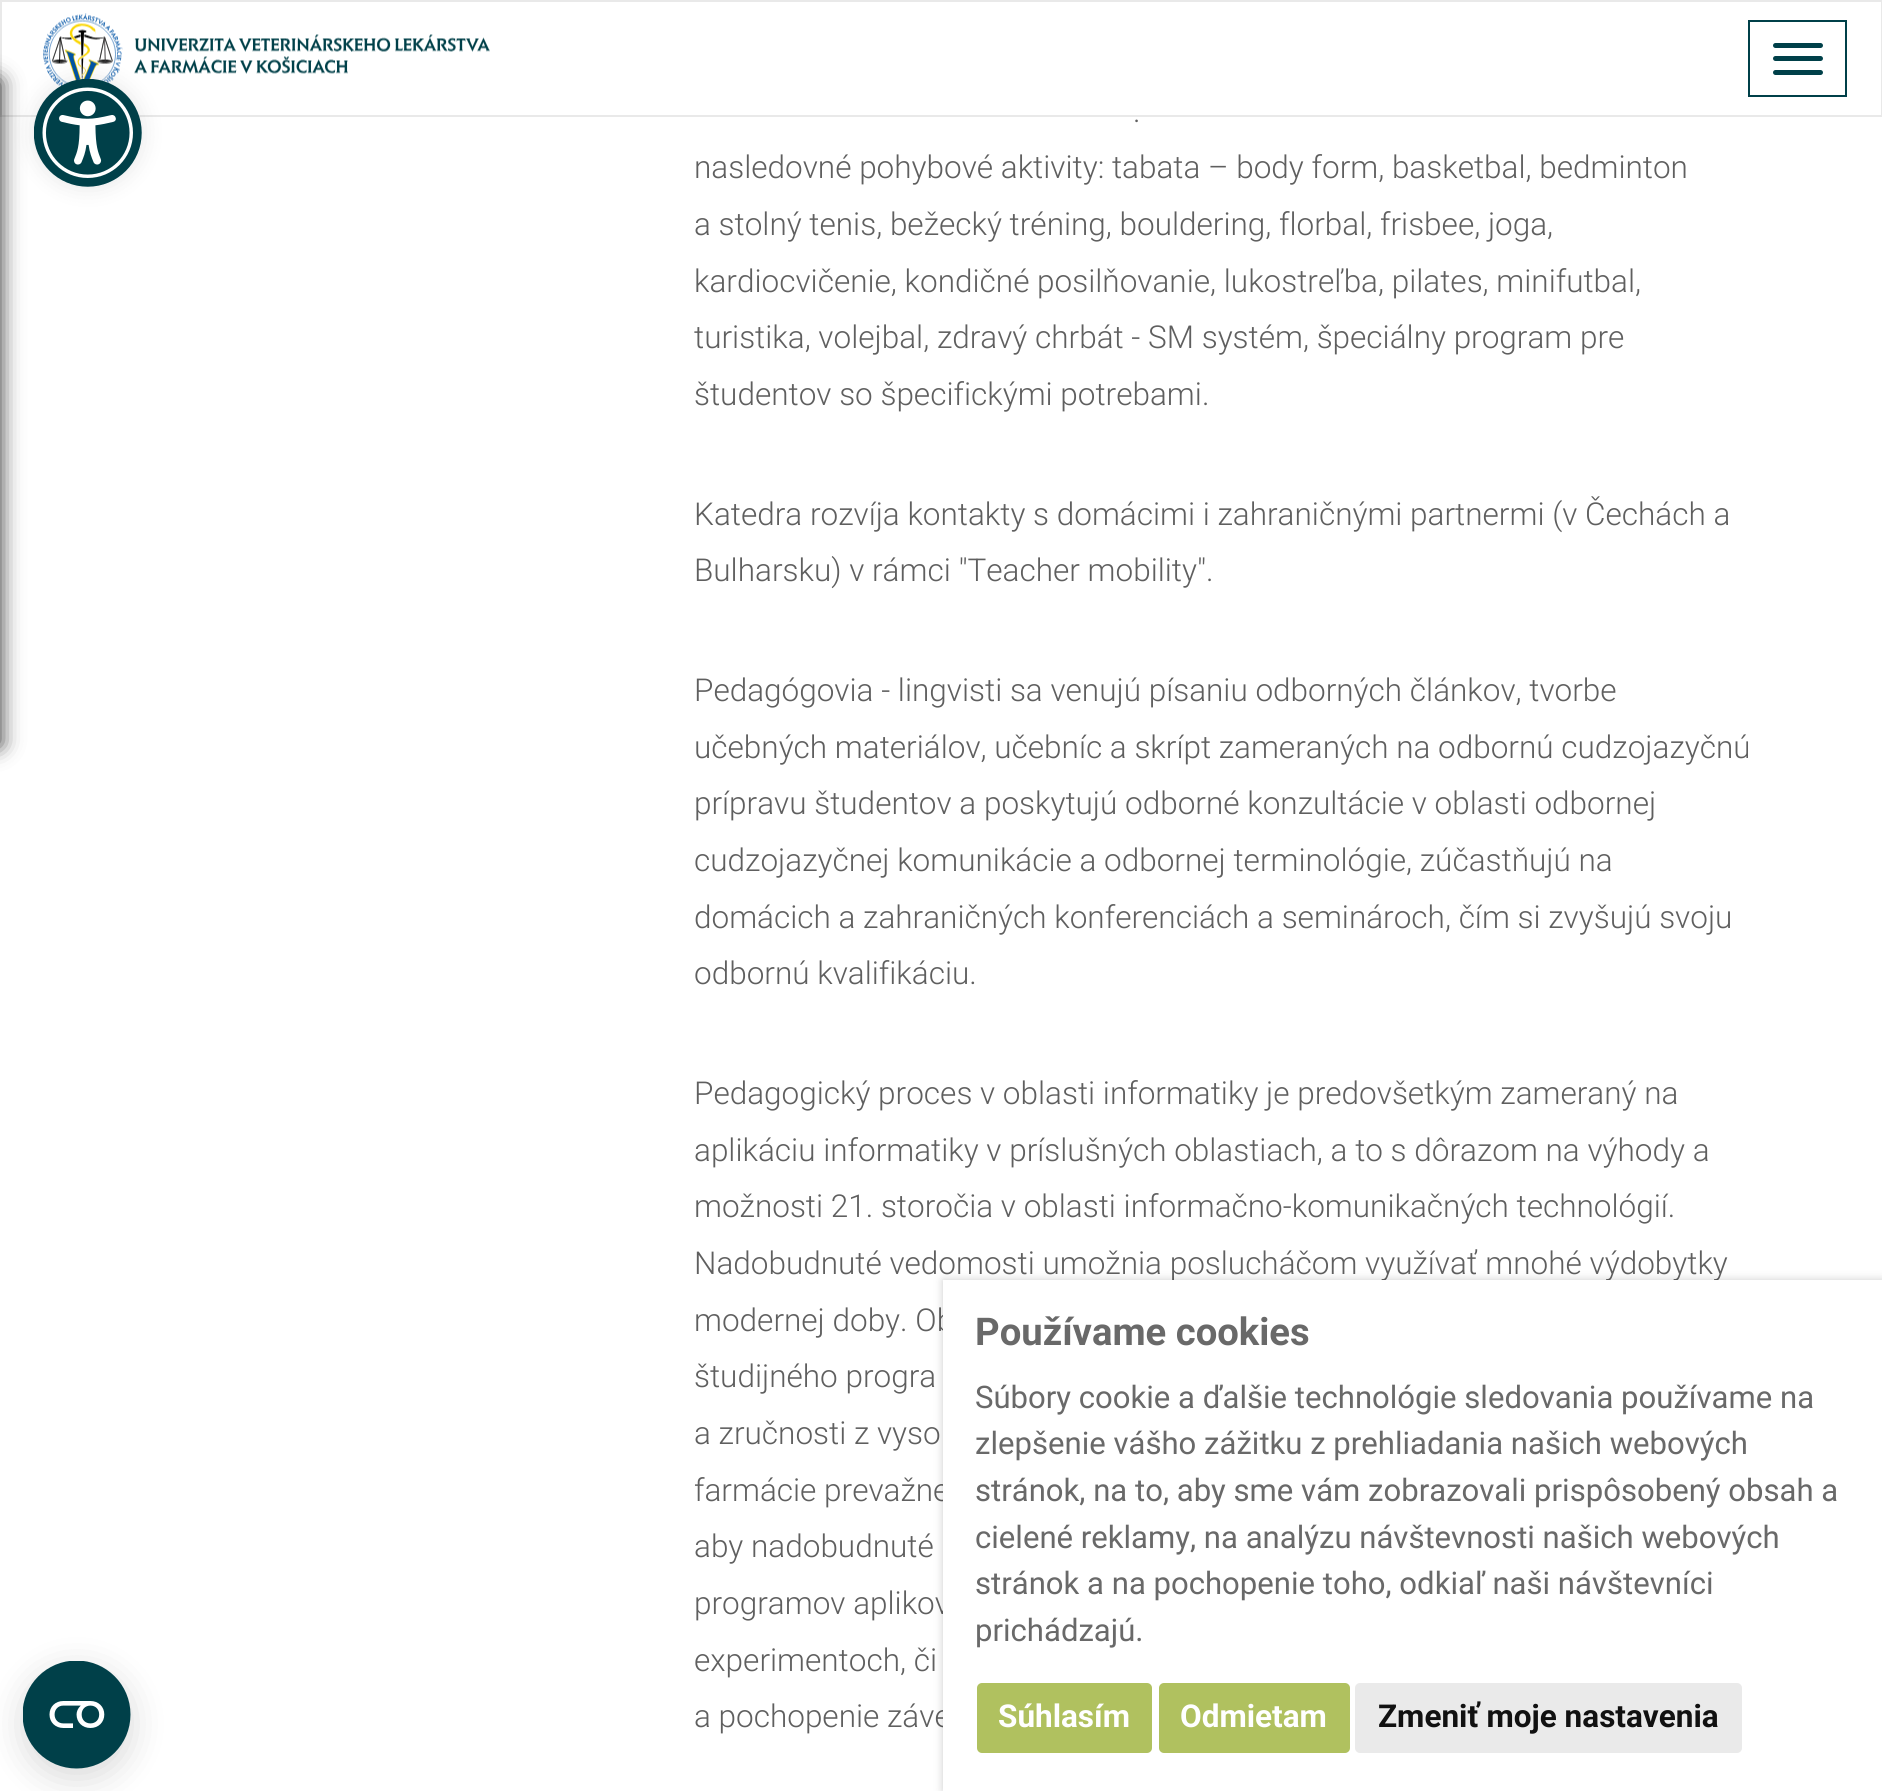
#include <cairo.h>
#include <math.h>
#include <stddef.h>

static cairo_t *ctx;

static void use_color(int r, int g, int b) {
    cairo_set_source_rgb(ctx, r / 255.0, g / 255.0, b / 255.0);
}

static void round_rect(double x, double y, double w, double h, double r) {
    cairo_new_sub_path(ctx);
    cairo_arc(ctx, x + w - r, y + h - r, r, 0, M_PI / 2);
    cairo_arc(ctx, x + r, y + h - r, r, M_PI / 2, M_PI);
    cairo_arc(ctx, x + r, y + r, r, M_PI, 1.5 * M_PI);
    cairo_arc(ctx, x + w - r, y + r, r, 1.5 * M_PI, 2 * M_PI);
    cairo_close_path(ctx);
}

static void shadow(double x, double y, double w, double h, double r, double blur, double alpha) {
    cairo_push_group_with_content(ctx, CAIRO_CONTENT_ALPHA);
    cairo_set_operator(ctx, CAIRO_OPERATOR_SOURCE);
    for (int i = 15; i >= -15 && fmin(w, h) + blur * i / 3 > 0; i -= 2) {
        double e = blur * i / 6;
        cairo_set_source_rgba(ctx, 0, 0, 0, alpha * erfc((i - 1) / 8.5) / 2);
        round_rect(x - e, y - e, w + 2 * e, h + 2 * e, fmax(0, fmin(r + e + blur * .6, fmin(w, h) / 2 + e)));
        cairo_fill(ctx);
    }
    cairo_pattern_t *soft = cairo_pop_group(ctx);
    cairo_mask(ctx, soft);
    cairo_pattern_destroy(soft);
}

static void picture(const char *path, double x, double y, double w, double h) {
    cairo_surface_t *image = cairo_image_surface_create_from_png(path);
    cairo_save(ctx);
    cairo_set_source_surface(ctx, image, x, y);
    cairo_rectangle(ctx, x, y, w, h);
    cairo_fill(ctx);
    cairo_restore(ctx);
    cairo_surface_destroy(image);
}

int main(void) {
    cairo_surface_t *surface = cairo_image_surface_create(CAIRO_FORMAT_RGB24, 1882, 1791);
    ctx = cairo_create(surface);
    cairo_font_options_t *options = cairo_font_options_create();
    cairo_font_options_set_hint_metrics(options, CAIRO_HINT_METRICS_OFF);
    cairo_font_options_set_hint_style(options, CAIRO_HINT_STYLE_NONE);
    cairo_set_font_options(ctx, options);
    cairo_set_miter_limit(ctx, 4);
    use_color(255, 255, 255);
    cairo_paint(ctx);
    cairo_rectangle(ctx, 1, 1, 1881, 115);
    use_color(233, 233, 233);
    cairo_stroke(ctx);
    picture("img2.png", 43, 13, 447, 73);
    use_color(0, 0, 0);
    shadow(34, 79, 108, 108, 54, 11, 0.1);
    use_color(255, 255, 255);
    cairo_arc(ctx, 88, 133, 54, 0, 2 * M_PI);
    cairo_fill(ctx);
    picture("img1.png", 34, 79, 108, 108);
    use_color(0, 0, 0);
    shadow(-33, 81, 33, 664, 0, 11, 0.84);
    cairo_rectangle(ctx, 1749, 21, 97, 75);
    use_color(0, 64, 73);
    cairo_stroke(ctx);
    round_rect(1773, 43, 50, 5, 2.5);
    cairo_fill(ctx);
    round_rect(1773, 56, 50, 5, 2.5);
    cairo_fill(ctx);
    round_rect(1773, 70, 50, 5, 2.5);
    cairo_fill(ctx);
    use_color(0, 0, 0);
    shadow(23, 1670, 108, 108, 54, 18, 0.15);
    picture("img3.png", 23, 1661, 108, 108);
    cairo_select_font_face(ctx, "Roboto Light", CAIRO_FONT_SLANT_NORMAL, CAIRO_FONT_WEIGHT_NORMAL);
    cairo_set_font_size(ctx, 31.5);
    use_color(95, 95, 95);
    cairo_move_to(ctx, 1133, 122);
    cairo_show_text(ctx, ".");
    cairo_move_to(ctx, 694, 178);
    cairo_show_text(ctx, "nasledovné pohybové aktivity: tabata – body form, basketbal, bedminton");
    cairo_move_to(ctx, 694, 235);
    cairo_show_text(ctx, "a stolný tenis, bežecký tréning, bouldering, florbal, frisbee, joga,");
    cairo_move_to(ctx, 694, 292);
    cairo_show_text(ctx, "kardiocvičenie, kondičné posilňovanie, lukostreľba, pilates, minifutbal,");
    cairo_move_to(ctx, 694, 348);
    cairo_show_text(ctx, "turistika, volejbal, zdravý chrbát - SM systém, špeciálny program pre");
    cairo_move_to(ctx, 694, 405);
    cairo_show_text(ctx, "študentov so špecifickými potrebami.");
    cairo_move_to(ctx, 694, 525);
    cairo_show_text(ctx, "Katedra rozvíja kontakty s domácimi i zahraničnými partnermi (v Čechách a");
    cairo_move_to(ctx, 694, 581);
    cairo_show_text(ctx, "Bulharsku) v rámci \"Teacher mobility\".");
    cairo_move_to(ctx, 694, 701);
    cairo_show_text(ctx, "Pedagógovia - lingvisti sa venujú písaniu odborných článkov, tvorbe");
    cairo_move_to(ctx, 694, 758);
    cairo_show_text(ctx, "učebných materiálov, učebníc a skrípt zameraných na odbornú cudzojazyčnú");
    cairo_move_to(ctx, 694, 814);
    cairo_show_text(ctx, "prípravu študentov a poskytujú odborné konzultácie v oblasti odbornej");
    cairo_move_to(ctx, 694, 871);
    cairo_show_text(ctx, "cudzojazyčnej komunikácie a odbornej terminológie, zúčastňujú na");
    cairo_move_to(ctx, 694, 928);
    cairo_show_text(ctx, "domácich a zahraničných konferenciách a seminároch, čím si zvyšujú svoju");
    cairo_move_to(ctx, 694, 984);
    cairo_show_text(ctx, "odbornú kvalifikáciu.");
    cairo_move_to(ctx, 694, 1104);
    cairo_show_text(ctx, "Pedagogický proces v oblasti informatiky je predovšetkým zameraný na");
    cairo_move_to(ctx, 694, 1161);
    cairo_show_text(ctx, "aplikáciu informatiky v príslušných oblastiach, a to s dôrazom na výhody a");
    cairo_move_to(ctx, 694, 1217);
    cairo_show_text(ctx, "možnosti 21. storočia v oblasti informačno-komunikačných technológií.");
    cairo_move_to(ctx, 694, 1274);
    cairo_show_text(ctx, "Nadobudnuté vedomosti umožnia poslucháčom využívať mnohé výdobytky");
    cairo_move_to(ctx, 694, 1331);
    cairo_show_text(ctx, "modernej doby. Ob");
    cairo_move_to(ctx, 694, 1387);
    cairo_show_text(ctx, "študijného progra");
    cairo_move_to(ctx, 694, 1444);
    cairo_show_text(ctx, "a zručnosti z vyso");
    cairo_move_to(ctx, 694, 1501);
    cairo_show_text(ctx, "farmácie prevažne");
    cairo_move_to(ctx, 694, 1557);
    cairo_show_text(ctx, "aby nadobudnuté");
    cairo_move_to(ctx, 694, 1614);
    cairo_show_text(ctx, "programov aplikov");
    cairo_move_to(ctx, 694, 1671);
    cairo_show_text(ctx, "experimentoch, či");
    cairo_move_to(ctx, 694, 1727);
    cairo_show_text(ctx, "a pochopenie záve");
    use_color(0, 0, 0);
    shadow(943, 1280, 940, 511, 0, 4.5, 0.2);
    use_color(255, 255, 255);
    cairo_rectangle(ctx, 943, 1280, 939, 511);
    cairo_fill(ctx);
    cairo_select_font_face(ctx, "Roboto", CAIRO_FONT_SLANT_NORMAL, CAIRO_FONT_WEIGHT_BOLD);
    cairo_set_font_size(ctx, 38.25);
    use_color(105, 105, 105);
    cairo_move_to(ctx, 975, 1345);
    cairo_show_text(ctx, "Používame cookies");
    cairo_select_font_face(ctx, "Roboto", CAIRO_FONT_SLANT_NORMAL, CAIRO_FONT_WEIGHT_NORMAL);
    cairo_set_font_size(ctx, 31.1);
    cairo_move_to(ctx, 975, 1408);
    cairo_show_text(ctx, "Súbory cookie a ďalšie technológie sledovania používame na");
    cairo_move_to(ctx, 975, 1454);
    cairo_show_text(ctx, "zlepšenie vášho zážitku z prehliadania našich webových");
    cairo_move_to(ctx, 975, 1501);
    cairo_show_text(ctx, "stránok, na to, aby sme vám zobrazovali prispôsobený obsah a");
    cairo_move_to(ctx, 975, 1548);
    cairo_show_text(ctx, "cielené reklamy, na analýzu návštevnosti našich webových");
    cairo_move_to(ctx, 975, 1594);
    cairo_show_text(ctx, "stránok a na pochopenie toho, odkiaľ naši návštevníci");
    cairo_move_to(ctx, 975, 1641);
    cairo_show_text(ctx, "prichádzajú.");
    use_color(176, 193, 95);
    round_rect(977, 1683, 175, 70, 5);
    cairo_fill(ctx);
    cairo_select_font_face(ctx, "Roboto", CAIRO_FONT_SLANT_NORMAL, CAIRO_FONT_WEIGHT_BOLD);
    cairo_set_font_size(ctx, 31.5);
    use_color(255, 255, 255);
    cairo_move_to(ctx, 998, 1727);
    cairo_show_text(ctx, "Súhlasím");
    use_color(176, 193, 95);
    round_rect(1159, 1683, 191, 70, 5);
    cairo_fill(ctx);
    use_color(255, 255, 255);
    cairo_move_to(ctx, 1180, 1727);
    cairo_show_text(ctx, "Odmietam");
    use_color(234, 234, 234);
    round_rect(1355, 1683, 387, 70, 5);
    cairo_fill(ctx);
    use_color(17, 17, 17);
    cairo_move_to(ctx, 1378, 1727);
    cairo_show_text(ctx, "Zmeniť moje nastavenia");
    cairo_surface_write_to_png(surface, "result.png");
    cairo_font_options_destroy(options);
    cairo_destroy(ctx);
    cairo_surface_destroy(surface);
    return 0;
}
